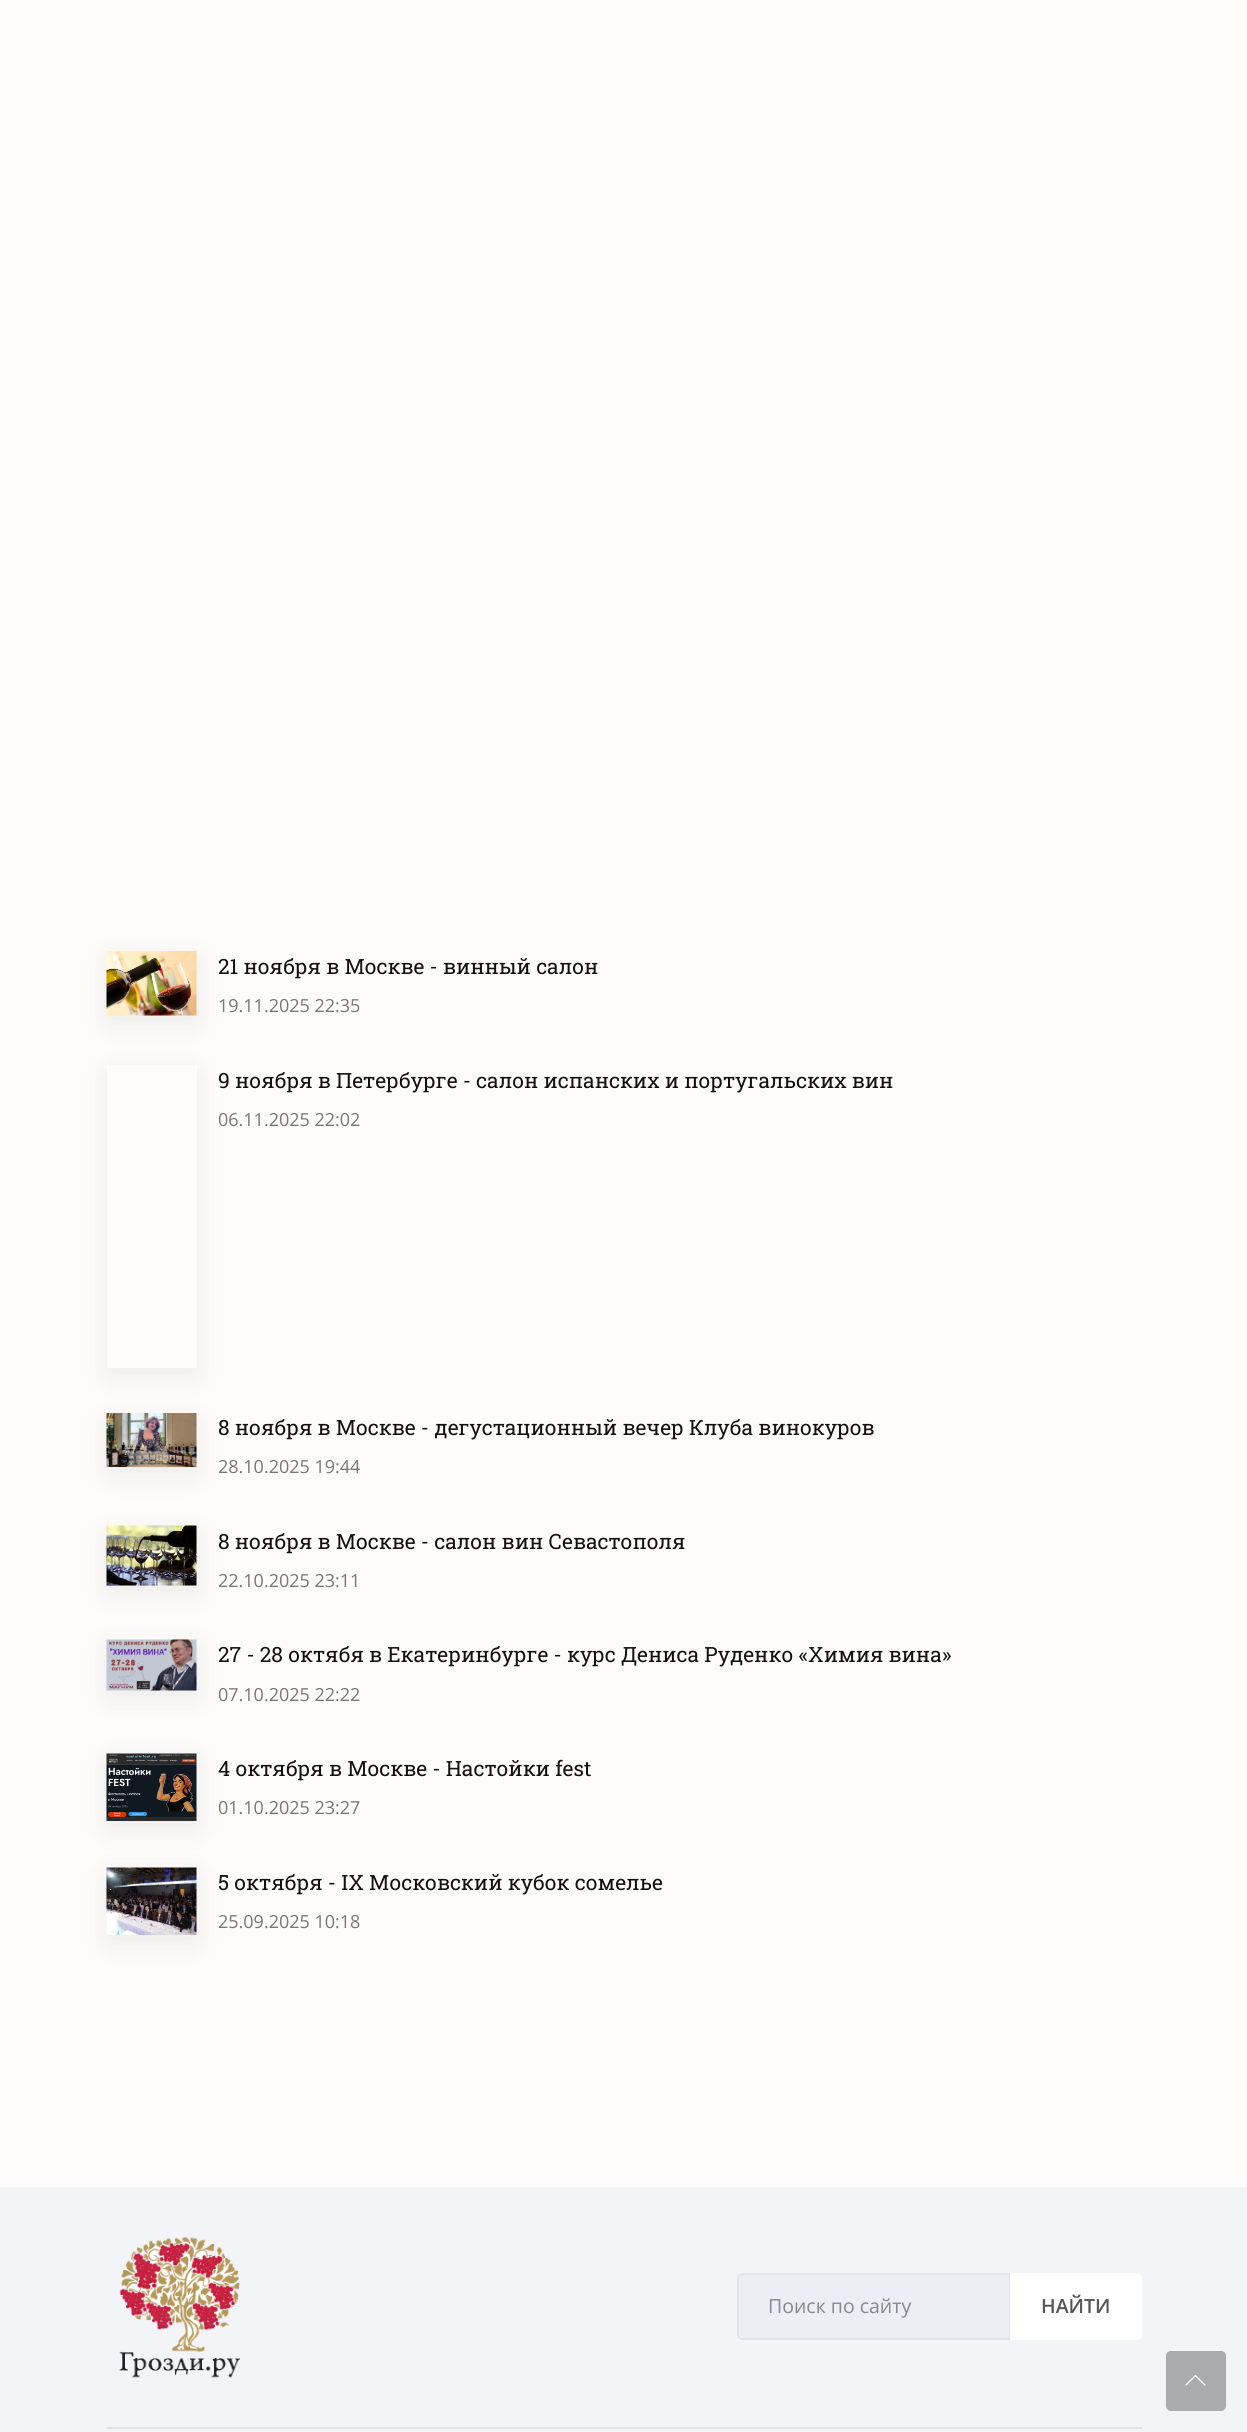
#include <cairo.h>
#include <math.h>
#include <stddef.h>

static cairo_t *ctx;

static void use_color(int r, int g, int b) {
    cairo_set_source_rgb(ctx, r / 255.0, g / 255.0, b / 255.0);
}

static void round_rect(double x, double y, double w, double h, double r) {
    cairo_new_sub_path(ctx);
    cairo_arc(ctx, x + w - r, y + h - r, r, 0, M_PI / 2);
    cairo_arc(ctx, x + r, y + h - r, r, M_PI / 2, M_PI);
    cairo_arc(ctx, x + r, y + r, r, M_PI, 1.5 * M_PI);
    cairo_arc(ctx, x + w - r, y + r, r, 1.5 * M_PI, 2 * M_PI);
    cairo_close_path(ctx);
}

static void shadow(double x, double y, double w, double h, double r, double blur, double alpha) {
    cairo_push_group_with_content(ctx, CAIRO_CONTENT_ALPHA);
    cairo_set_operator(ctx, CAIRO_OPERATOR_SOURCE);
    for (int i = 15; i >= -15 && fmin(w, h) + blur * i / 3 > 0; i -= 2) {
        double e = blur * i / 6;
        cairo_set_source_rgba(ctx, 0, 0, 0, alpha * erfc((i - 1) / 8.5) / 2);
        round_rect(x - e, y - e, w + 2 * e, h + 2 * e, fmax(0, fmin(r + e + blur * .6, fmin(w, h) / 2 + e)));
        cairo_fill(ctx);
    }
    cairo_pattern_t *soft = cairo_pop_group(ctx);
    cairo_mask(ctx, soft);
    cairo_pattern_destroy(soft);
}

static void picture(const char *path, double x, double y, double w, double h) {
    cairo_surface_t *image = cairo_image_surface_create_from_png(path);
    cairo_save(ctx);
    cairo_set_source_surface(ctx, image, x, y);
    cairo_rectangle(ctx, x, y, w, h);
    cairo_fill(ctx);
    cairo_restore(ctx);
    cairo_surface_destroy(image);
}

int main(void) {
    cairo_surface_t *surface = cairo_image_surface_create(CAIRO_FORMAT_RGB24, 1247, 2432);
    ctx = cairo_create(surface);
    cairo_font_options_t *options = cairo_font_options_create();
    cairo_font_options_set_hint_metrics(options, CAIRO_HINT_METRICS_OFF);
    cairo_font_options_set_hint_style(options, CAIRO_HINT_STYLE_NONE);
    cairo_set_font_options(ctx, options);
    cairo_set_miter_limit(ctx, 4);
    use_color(253, 252, 250);
    cairo_paint(ctx);
    use_color(0, 0, 0);
    shadow(107, 959, 90, 64, 0, 15, 0.07);
    picture("img1.png", 106, 951, 91, 65);
    cairo_select_font_face(ctx, "Roboto Slab", CAIRO_FONT_SLANT_NORMAL, CAIRO_FONT_WEIGHT_NORMAL);
    cairo_set_font_size(ctx, 21);
    use_color(17, 17, 17);
    cairo_move_to(ctx, 218, 974);
    cairo_show_text(ctx, "21 ноября в Москве - винный салон");
    cairo_select_font_face(ctx, "Open Sans", CAIRO_FONT_SLANT_NORMAL, CAIRO_FONT_WEIGHT_NORMAL);
    cairo_set_font_size(ctx, 18);
    use_color(119, 119, 119);
    cairo_move_to(ctx, 218, 1012);
    cairo_show_text(ctx, "19.11.2025 22:35");
    cairo_save(ctx);
    cairo_set_fill_rule(ctx, CAIRO_FILL_RULE_EVEN_ODD);
    cairo_new_path(ctx);
    cairo_move_to(ctx, 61, 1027);
    cairo_line_to(ctx, 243, 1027);
    cairo_line_to(ctx, 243, 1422);
    cairo_line_to(ctx, 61, 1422);
    cairo_close_path(ctx);
    cairo_move_to(ctx, 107, 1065);
    cairo_line_to(ctx, 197, 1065);
    cairo_line_to(ctx, 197, 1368);
    cairo_line_to(ctx, 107, 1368);
    cairo_close_path(ctx);
    cairo_clip(ctx);
    use_color(0, 0, 0);
    shadow(107, 1073, 90, 303, 0, 15, 0.07);
    cairo_restore(ctx);
    cairo_select_font_face(ctx, "Roboto Slab", CAIRO_FONT_SLANT_NORMAL, CAIRO_FONT_WEIGHT_NORMAL);
    cairo_set_font_size(ctx, 21);
    use_color(17, 17, 17);
    cairo_move_to(ctx, 218, 1088);
    cairo_show_text(ctx, "9 ноября в Петербурге - салон испанских и португальских вин");
    cairo_select_font_face(ctx, "Open Sans", CAIRO_FONT_SLANT_NORMAL, CAIRO_FONT_WEIGHT_NORMAL);
    cairo_set_font_size(ctx, 18);
    use_color(119, 119, 119);
    cairo_move_to(ctx, 218, 1126);
    cairo_show_text(ctx, "06.11.2025 22:02");
    use_color(0, 0, 0);
    shadow(107, 1421, 90, 54, 0, 15, 0.07);
    picture("img2.png", 106, 1413, 91, 54);
    cairo_select_font_face(ctx, "Roboto Slab", CAIRO_FONT_SLANT_NORMAL, CAIRO_FONT_WEIGHT_NORMAL);
    cairo_set_font_size(ctx, 21);
    use_color(17, 17, 17);
    cairo_move_to(ctx, 218, 1435);
    cairo_show_text(ctx, "8 ноября в Москве - дегустационный вечер Клуба винокуров");
    cairo_select_font_face(ctx, "Open Sans", CAIRO_FONT_SLANT_NORMAL, CAIRO_FONT_WEIGHT_NORMAL);
    cairo_set_font_size(ctx, 18);
    use_color(119, 119, 119);
    cairo_move_to(ctx, 218, 1473);
    cairo_show_text(ctx, "28.10.2025 19:44");
    use_color(0, 0, 0);
    shadow(107, 1533, 90, 60, 0, 15, 0.07);
    picture("img3.png", 106, 1525, 91, 61);
    cairo_select_font_face(ctx, "Roboto Slab", CAIRO_FONT_SLANT_NORMAL, CAIRO_FONT_WEIGHT_NORMAL);
    cairo_set_font_size(ctx, 21);
    use_color(17, 17, 17);
    cairo_move_to(ctx, 218, 1549);
    cairo_show_text(ctx, "8 ноября в Москве - салон вин Севастополя");
    cairo_select_font_face(ctx, "Open Sans", CAIRO_FONT_SLANT_NORMAL, CAIRO_FONT_WEIGHT_NORMAL);
    cairo_set_font_size(ctx, 18);
    use_color(119, 119, 119);
    cairo_move_to(ctx, 218, 1587);
    cairo_show_text(ctx, "22.10.2025 23:11");
    use_color(0, 0, 0);
    shadow(107, 1647, 90, 51, 0, 15, 0.07);
    picture("img4.png", 106, 1639, 91, 52);
    cairo_select_font_face(ctx, "Roboto Slab", CAIRO_FONT_SLANT_NORMAL, CAIRO_FONT_WEIGHT_NORMAL);
    cairo_set_font_size(ctx, 21);
    use_color(17, 17, 17);
    cairo_move_to(ctx, 218, 1662);
    cairo_show_text(ctx, "27 - 28 октябя в Екатеринбурге - курс Дениса Руденко «Химия вина»");
    cairo_select_font_face(ctx, "Open Sans", CAIRO_FONT_SLANT_NORMAL, CAIRO_FONT_WEIGHT_NORMAL);
    cairo_set_font_size(ctx, 18);
    use_color(119, 119, 119);
    cairo_move_to(ctx, 218, 1701);
    cairo_show_text(ctx, "07.10.2025 22:22");
    use_color(0, 0, 0);
    shadow(107, 1761, 90, 68, 0, 15, 0.07);
    picture("img5.png", 106, 1753, 91, 68);
    cairo_select_font_face(ctx, "Roboto Slab", CAIRO_FONT_SLANT_NORMAL, CAIRO_FONT_WEIGHT_NORMAL);
    cairo_set_font_size(ctx, 21);
    use_color(17, 17, 17);
    cairo_move_to(ctx, 218, 1776);
    cairo_show_text(ctx, "4 октября в Москве - Настойки fest");
    cairo_select_font_face(ctx, "Open Sans", CAIRO_FONT_SLANT_NORMAL, CAIRO_FONT_WEIGHT_NORMAL);
    cairo_set_font_size(ctx, 18);
    use_color(119, 119, 119);
    cairo_move_to(ctx, 218, 1814);
    cairo_show_text(ctx, "01.10.2025 23:27");
    use_color(0, 0, 0);
    shadow(107, 1875, 90, 68, 0, 15, 0.07);
    picture("img6.png", 106, 1867, 91, 68);
    cairo_select_font_face(ctx, "Roboto Slab", CAIRO_FONT_SLANT_NORMAL, CAIRO_FONT_WEIGHT_NORMAL);
    cairo_set_font_size(ctx, 21);
    use_color(17, 17, 17);
    cairo_move_to(ctx, 218, 1890);
    cairo_show_text(ctx, "5 октября - IX Московский кубок сомелье");
    cairo_select_font_face(ctx, "Open Sans", CAIRO_FONT_SLANT_NORMAL, CAIRO_FONT_WEIGHT_NORMAL);
    cairo_set_font_size(ctx, 18);
    use_color(119, 119, 119);
    cairo_move_to(ctx, 218, 1928);
    cairo_show_text(ctx, "25.09.2025 10:18");
    use_color(242, 244, 248);
    cairo_rectangle(ctx, 0, 2187, 1247, 245);
    cairo_fill(ctx);
    use_color(224, 228, 234);
    cairo_rectangle(ctx, 107, 2427, 1035, 2);
    cairo_fill(ctx);
    picture("img7.png", 119, 2236, 121, 142);
    use_color(235, 238, 244);
    cairo_new_path(ctx);
    cairo_move_to(ctx, 743, 2274);
    cairo_line_to(ctx, 1010, 2274);
    cairo_line_to(ctx, 1010, 2339);
    cairo_line_to(ctx, 743, 2339);
    cairo_curve_to(ctx, 740, 2339, 738, 2337, 738, 2334);
    cairo_line_to(ctx, 738, 2279);
    cairo_curve_to(ctx, 738, 2276, 740, 2274, 743, 2274);
    cairo_close_path(ctx);
    cairo_fill_preserve(ctx);
    use_color(224, 228, 234);
    cairo_stroke(ctx);
    cairo_set_font_size(ctx, 19.5);
    use_color(133, 137, 147);
    cairo_move_to(ctx, 768, 2313);
    cairo_show_text(ctx, "Поиск по сайту");
    use_color(255, 255, 255);
    cairo_new_path(ctx);
    cairo_move_to(ctx, 1010, 2273);
    cairo_line_to(ctx, 1136, 2273);
    cairo_curve_to(ctx, 1139.5, 2273, 1142, 2275.5, 1142, 2279);
    cairo_line_to(ctx, 1142, 2334);
    cairo_curve_to(ctx, 1142, 2337.5, 1139.5, 2340, 1136, 2340);
    cairo_line_to(ctx, 1010, 2340);
    cairo_close_path(ctx);
    cairo_fill(ctx);
    cairo_select_font_face(ctx, "Open Sans SemiBold", CAIRO_FONT_SLANT_NORMAL, CAIRO_FONT_WEIGHT_NORMAL);
    use_color(85, 85, 85);
    cairo_move_to(ctx, 1041, 2313);
    cairo_show_text(ctx, "НАЙТИ");
    use_color(169, 171, 174);
    round_rect(1166, 2351, 60, 60, 5);
    cairo_fill(ctx);
    picture("img8.png", 1185, 2375, 21, 11);
    cairo_surface_write_to_png(surface, "result.png");
    cairo_font_options_destroy(options);
    cairo_destroy(ctx);
    cairo_surface_destroy(surface);
    return 0;
}
